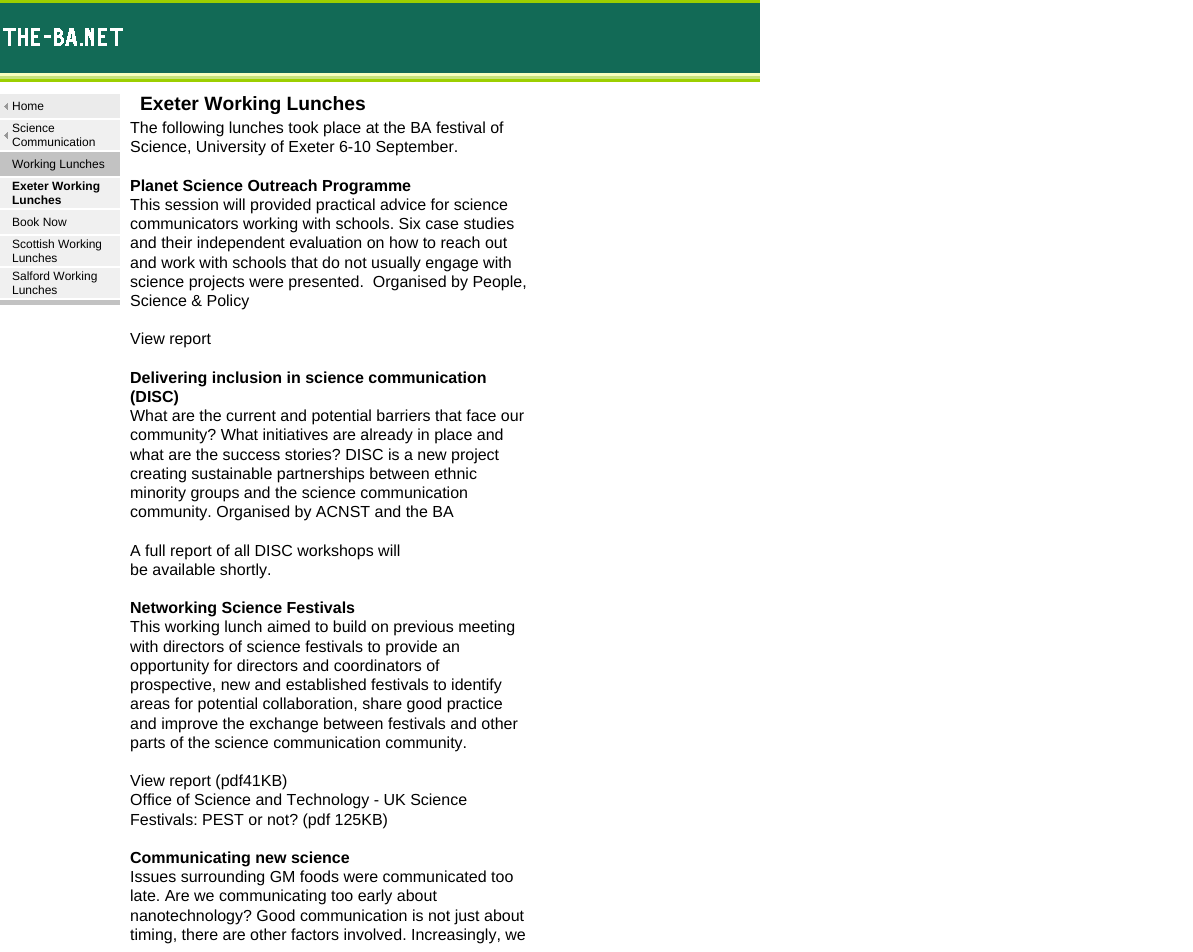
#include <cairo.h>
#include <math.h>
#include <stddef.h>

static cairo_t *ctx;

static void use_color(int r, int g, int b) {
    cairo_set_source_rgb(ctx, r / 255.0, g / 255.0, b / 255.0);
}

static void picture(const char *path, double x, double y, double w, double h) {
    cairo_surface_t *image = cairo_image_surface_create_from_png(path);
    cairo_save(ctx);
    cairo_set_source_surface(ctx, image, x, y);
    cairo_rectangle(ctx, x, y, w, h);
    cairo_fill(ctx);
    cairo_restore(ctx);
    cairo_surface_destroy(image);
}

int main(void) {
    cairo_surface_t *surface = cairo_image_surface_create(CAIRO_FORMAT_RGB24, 1193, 952);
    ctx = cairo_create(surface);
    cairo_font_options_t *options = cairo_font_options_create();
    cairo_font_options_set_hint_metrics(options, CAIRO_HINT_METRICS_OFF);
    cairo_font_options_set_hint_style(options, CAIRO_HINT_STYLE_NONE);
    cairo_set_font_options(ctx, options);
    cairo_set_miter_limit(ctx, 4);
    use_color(255, 255, 255);
    cairo_paint(ctx);
    use_color(156, 207, 0);
    cairo_rectangle(ctx, 0, 0, 760, 3);
    cairo_fill(ctx);
    picture("img1.png", 0, 3, 127, 70);
    use_color(18, 106, 86);
    cairo_rectangle(ctx, 127, 3, 633, 70);
    cairo_fill(ctx);
    use_color(247, 255, 189);
    cairo_rectangle(ctx, 0, 73, 760, 3);
    cairo_fill(ctx);
    use_color(198, 227, 123);
    cairo_rectangle(ctx, 0, 76, 760, 3);
    cairo_fill(ctx);
    use_color(156, 207, 0);
    cairo_rectangle(ctx, 0, 79, 760, 3);
    cairo_fill(ctx);
    use_color(235, 235, 235);
    cairo_rectangle(ctx, 0, 94, 120, 24);
    cairo_fill(ctx);
    picture("img2.png", 4, 103, 4, 7);
    cairo_select_font_face(ctx, "Liberation Sans", CAIRO_FONT_SLANT_NORMAL, CAIRO_FONT_WEIGHT_NORMAL);
    cairo_set_font_size(ctx, 12);
    use_color(0, 0, 0);
    cairo_move_to(ctx, 12, 110);
    cairo_show_text(ctx, "Home");
    use_color(240, 240, 240);
    cairo_rectangle(ctx, 0, 120, 120, 30);
    cairo_fill(ctx);
    picture("img3.png", 4, 132, 4, 7);
    use_color(0, 0, 0);
    cairo_move_to(ctx, 12, 132);
    cairo_show_text(ctx, "Science");
    cairo_move_to(ctx, 12, 146);
    cairo_show_text(ctx, "Communication");
    use_color(194, 194, 194);
    cairo_rectangle(ctx, 0, 152, 120, 24);
    cairo_fill(ctx);
    use_color(0, 0, 0);
    cairo_move_to(ctx, 12, 168);
    cairo_show_text(ctx, "Working Lunches");
    use_color(240, 240, 240);
    cairo_rectangle(ctx, 0, 178, 120, 30);
    cairo_fill(ctx);
    cairo_select_font_face(ctx, "Liberation Sans", CAIRO_FONT_SLANT_NORMAL, CAIRO_FONT_WEIGHT_BOLD);
    use_color(0, 0, 0);
    cairo_move_to(ctx, 12, 190);
    cairo_show_text(ctx, "Exeter Working");
    cairo_move_to(ctx, 12, 204);
    cairo_show_text(ctx, "Lunches");
    use_color(240, 240, 240);
    cairo_rectangle(ctx, 0, 210, 120, 24);
    cairo_fill(ctx);
    cairo_select_font_face(ctx, "Liberation Sans", CAIRO_FONT_SLANT_NORMAL, CAIRO_FONT_WEIGHT_NORMAL);
    use_color(0, 0, 0);
    cairo_move_to(ctx, 12, 226);
    cairo_show_text(ctx, "Book Now");
    use_color(240, 240, 240);
    cairo_rectangle(ctx, 0, 236, 120, 30);
    cairo_fill(ctx);
    use_color(0, 0, 0);
    cairo_move_to(ctx, 12, 248);
    cairo_show_text(ctx, "Scottish Working");
    cairo_move_to(ctx, 12, 262);
    cairo_show_text(ctx, "Lunches");
    use_color(240, 240, 240);
    cairo_rectangle(ctx, 0, 268, 120, 30);
    cairo_fill(ctx);
    use_color(0, 0, 0);
    cairo_move_to(ctx, 12, 280);
    cairo_show_text(ctx, "Salford Working");
    cairo_move_to(ctx, 12, 294);
    cairo_show_text(ctx, "Lunches");
    use_color(194, 194, 194);
    cairo_rectangle(ctx, 0, 300, 120, 5);
    cairo_fill(ctx);
    cairo_select_font_face(ctx, "Liberation Sans", CAIRO_FONT_SLANT_NORMAL, CAIRO_FONT_WEIGHT_BOLD);
    cairo_set_font_size(ctx, 19.25);
    use_color(0, 0, 0);
    cairo_move_to(ctx, 140, 110);
    cairo_show_text(ctx, "Exeter Working Lunches");
    cairo_select_font_face(ctx, "Liberation Sans", CAIRO_FONT_SLANT_NORMAL, CAIRO_FONT_WEIGHT_NORMAL);
    cairo_set_font_size(ctx, 16);
    cairo_move_to(ctx, 130, 133);
    cairo_show_text(ctx, "The following lunches took place at the BA festival of");
    cairo_move_to(ctx, 130, 152);
    cairo_show_text(ctx, "Science, University of Exeter 6-10 September.");
    cairo_select_font_face(ctx, "Liberation Sans", CAIRO_FONT_SLANT_NORMAL, CAIRO_FONT_WEIGHT_BOLD);
    cairo_move_to(ctx, 130, 191);
    cairo_show_text(ctx, "Planet Science Outreach Programme");
    cairo_select_font_face(ctx, "Liberation Sans", CAIRO_FONT_SLANT_NORMAL, CAIRO_FONT_WEIGHT_NORMAL);
    cairo_move_to(ctx, 130, 210);
    cairo_show_text(ctx, "This session will provided practical advice for science");
    cairo_move_to(ctx, 130, 229);
    cairo_show_text(ctx, "communicators working with schools. Six case studies");
    cairo_move_to(ctx, 130, 248);
    cairo_show_text(ctx, "and their independent evaluation on how to reach out");
    cairo_move_to(ctx, 130, 268);
    cairo_show_text(ctx, "and work with schools that do not usually engage with");
    cairo_move_to(ctx, 130, 287);
    cairo_show_text(ctx, "science projects were presented.  Organised by People,");
    cairo_move_to(ctx, 130, 306);
    cairo_show_text(ctx, "Science & Policy");
    cairo_move_to(ctx, 130, 344);
    cairo_show_text(ctx, "View report");
    cairo_select_font_face(ctx, "Liberation Sans", CAIRO_FONT_SLANT_NORMAL, CAIRO_FONT_WEIGHT_BOLD);
    cairo_move_to(ctx, 130, 383);
    cairo_show_text(ctx, "Delivering inclusion in science communication");
    cairo_move_to(ctx, 130, 402);
    cairo_show_text(ctx, "(DISC)");
    cairo_select_font_face(ctx, "Liberation Sans", CAIRO_FONT_SLANT_NORMAL, CAIRO_FONT_WEIGHT_NORMAL);
    cairo_move_to(ctx, 130, 421);
    cairo_show_text(ctx, "What are the current and potential barriers that face our");
    cairo_move_to(ctx, 130, 440);
    cairo_show_text(ctx, "community? What initiatives are already in place and");
    cairo_move_to(ctx, 130, 460);
    cairo_show_text(ctx, "what are the success stories? DISC is a new project");
    cairo_move_to(ctx, 130, 479);
    cairo_show_text(ctx, "creating sustainable partnerships between ethnic");
    cairo_move_to(ctx, 130, 498);
    cairo_show_text(ctx, "minority groups and the science communication");
    cairo_move_to(ctx, 130, 517);
    cairo_show_text(ctx, "community. Organised by ACNST and the BA");
    cairo_move_to(ctx, 130, 556);
    cairo_show_text(ctx, "A full report of all DISC workshops will");
    cairo_move_to(ctx, 130, 575);
    cairo_show_text(ctx, "be available shortly.");
    cairo_select_font_face(ctx, "Liberation Sans", CAIRO_FONT_SLANT_NORMAL, CAIRO_FONT_WEIGHT_BOLD);
    cairo_move_to(ctx, 130, 613);
    cairo_show_text(ctx, "Networking Science Festivals");
    cairo_select_font_face(ctx, "Liberation Sans", CAIRO_FONT_SLANT_NORMAL, CAIRO_FONT_WEIGHT_NORMAL);
    cairo_move_to(ctx, 130, 632);
    cairo_show_text(ctx, "This working lunch aimed to build on previous meeting");
    cairo_move_to(ctx, 130, 652);
    cairo_show_text(ctx, "with directors of science festivals to provide an");
    cairo_move_to(ctx, 130, 671);
    cairo_show_text(ctx, "opportunity for directors and coordinators of");
    cairo_move_to(ctx, 130, 690);
    cairo_show_text(ctx, "prospective, new and established festivals to identify");
    cairo_move_to(ctx, 130, 709);
    cairo_show_text(ctx, "areas for potential collaboration, share good practice");
    cairo_move_to(ctx, 130, 729);
    cairo_show_text(ctx, "and improve the exchange between festivals and other");
    cairo_move_to(ctx, 130, 748);
    cairo_show_text(ctx, "parts of the science communication community.");
    cairo_move_to(ctx, 130, 786);
    cairo_show_text(ctx, "View report (pdf41KB)");
    cairo_move_to(ctx, 130, 805);
    cairo_show_text(ctx, "Office of Science and Technology - UK Science");
    cairo_move_to(ctx, 130, 825);
    cairo_show_text(ctx, "Festivals: PEST or not? (pdf 125KB)");
    cairo_select_font_face(ctx, "Liberation Sans", CAIRO_FONT_SLANT_NORMAL, CAIRO_FONT_WEIGHT_BOLD);
    cairo_move_to(ctx, 130, 863);
    cairo_show_text(ctx, "Communicating new science");
    cairo_select_font_face(ctx, "Liberation Sans", CAIRO_FONT_SLANT_NORMAL, CAIRO_FONT_WEIGHT_NORMAL);
    cairo_move_to(ctx, 130, 882);
    cairo_show_text(ctx, "Issues surrounding GM foods were communicated too");
    cairo_move_to(ctx, 130, 901);
    cairo_show_text(ctx, "late. Are we communicating too early about");
    cairo_move_to(ctx, 130, 921);
    cairo_show_text(ctx, "nanotechnology? Good communication is not just about");
    cairo_move_to(ctx, 130, 940);
    cairo_show_text(ctx, "timing, there are other factors involved. Increasingly, we");
    cairo_surface_write_to_png(surface, "result.png");
    cairo_font_options_destroy(options);
    cairo_destroy(ctx);
    cairo_surface_destroy(surface);
    return 0;
}
